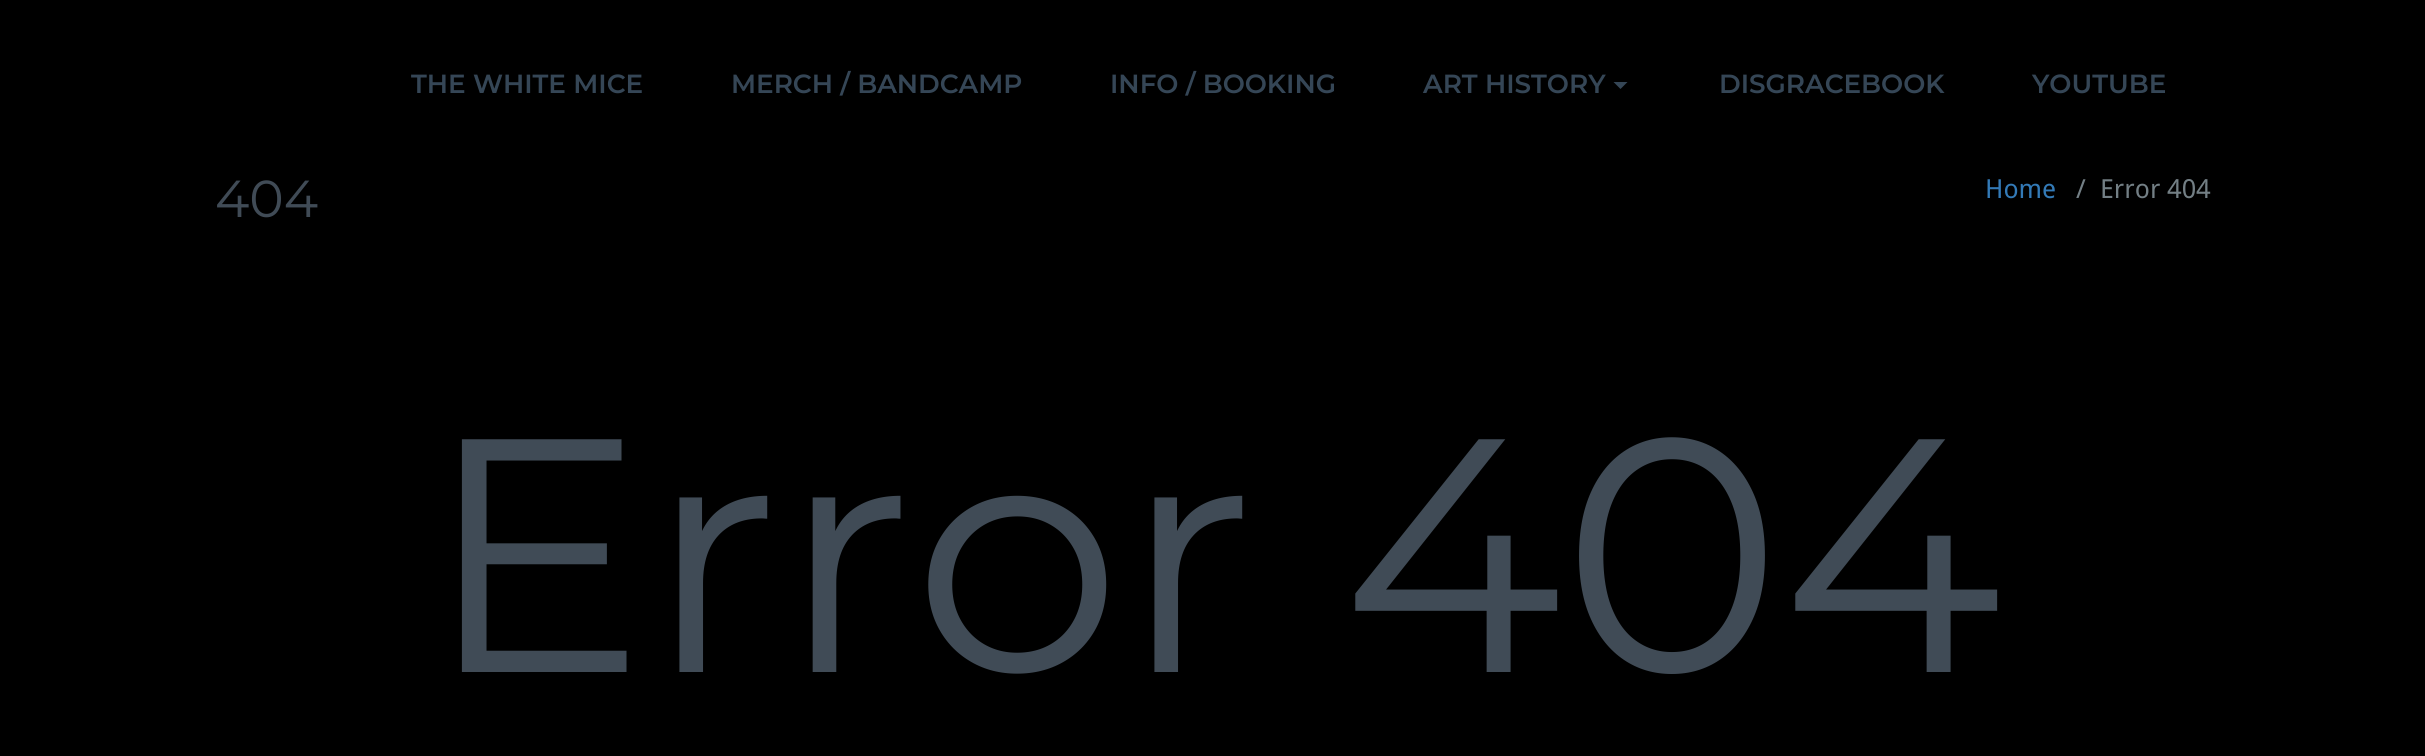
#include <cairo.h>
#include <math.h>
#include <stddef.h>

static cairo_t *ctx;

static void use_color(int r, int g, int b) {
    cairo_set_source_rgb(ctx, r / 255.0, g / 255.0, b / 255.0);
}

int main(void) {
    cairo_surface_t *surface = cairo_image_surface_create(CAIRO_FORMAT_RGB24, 2425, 756);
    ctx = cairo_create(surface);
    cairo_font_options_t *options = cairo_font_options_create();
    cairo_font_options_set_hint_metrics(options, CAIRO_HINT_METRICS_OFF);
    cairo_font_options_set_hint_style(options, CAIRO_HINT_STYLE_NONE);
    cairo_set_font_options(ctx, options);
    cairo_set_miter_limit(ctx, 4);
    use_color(0, 0, 0);
    cairo_paint(ctx);
    cairo_select_font_face(ctx, "Montserrat SemiBold", CAIRO_FONT_SLANT_NORMAL, CAIRO_FONT_WEIGHT_NORMAL);
    cairo_set_font_size(ctx, 26.25);
    use_color(53, 70, 86);
    cairo_move_to(ctx, 411, 93);
    cairo_show_text(ctx, "THE WHITE MICE");
    cairo_move_to(ctx, 731, 93);
    cairo_show_text(ctx, "MERCH / BANDCAMP");
    cairo_move_to(ctx, 1110, 93);
    cairo_show_text(ctx, "INFO / BOOKING");
    cairo_move_to(ctx, 1423, 93);
    cairo_show_text(ctx, "ART HISTORY");
    cairo_new_path(ctx);
    cairo_move_to(ctx, 1613.5, 82);
    cairo_line_to(ctx, 1627.5, 82);
    cairo_line_to(ctx, 1620.5, 89);
    cairo_close_path(ctx);
    cairo_fill(ctx);
    cairo_move_to(ctx, 1719, 93);
    cairo_show_text(ctx, "DISGRACEBOOK");
    cairo_move_to(ctx, 2032, 93);
    cairo_show_text(ctx, "YOUTUBE");
    cairo_select_font_face(ctx, "Montserrat", CAIRO_FONT_SLANT_NORMAL, CAIRO_FONT_WEIGHT_NORMAL);
    cairo_set_font_size(ctx, 52);
    use_color(64, 75, 86);
    cairo_move_to(ctx, 215, 217);
    cairo_show_text(ctx, "404");
    cairo_select_font_face(ctx, "Droid Sans", CAIRO_FONT_SLANT_NORMAL, CAIRO_FONT_WEIGHT_NORMAL);
    cairo_set_font_size(ctx, 26.25);
    use_color(51, 122, 183);
    cairo_move_to(ctx, 1985, 198);
    cairo_show_text(ctx, "Home");
    use_color(115, 127, 133);
    cairo_move_to(ctx, 2076, 198);
    cairo_show_text(ctx, "/");
    cairo_move_to(ctx, 2100, 198);
    cairo_show_text(ctx, "Error 404");
    cairo_select_font_face(ctx, "Montserrat", CAIRO_FONT_SLANT_NORMAL, CAIRO_FONT_WEIGHT_NORMAL);
    cairo_set_font_size(ctx, 332.5);
    use_color(64, 75, 86);
    cairo_move_to(ctx, 424, 672);
    cairo_show_text(ctx, "Error 404");
    cairo_surface_write_to_png(surface, "result.png");
    cairo_font_options_destroy(options);
    cairo_destroy(ctx);
    cairo_surface_destroy(surface);
    return 0;
}
